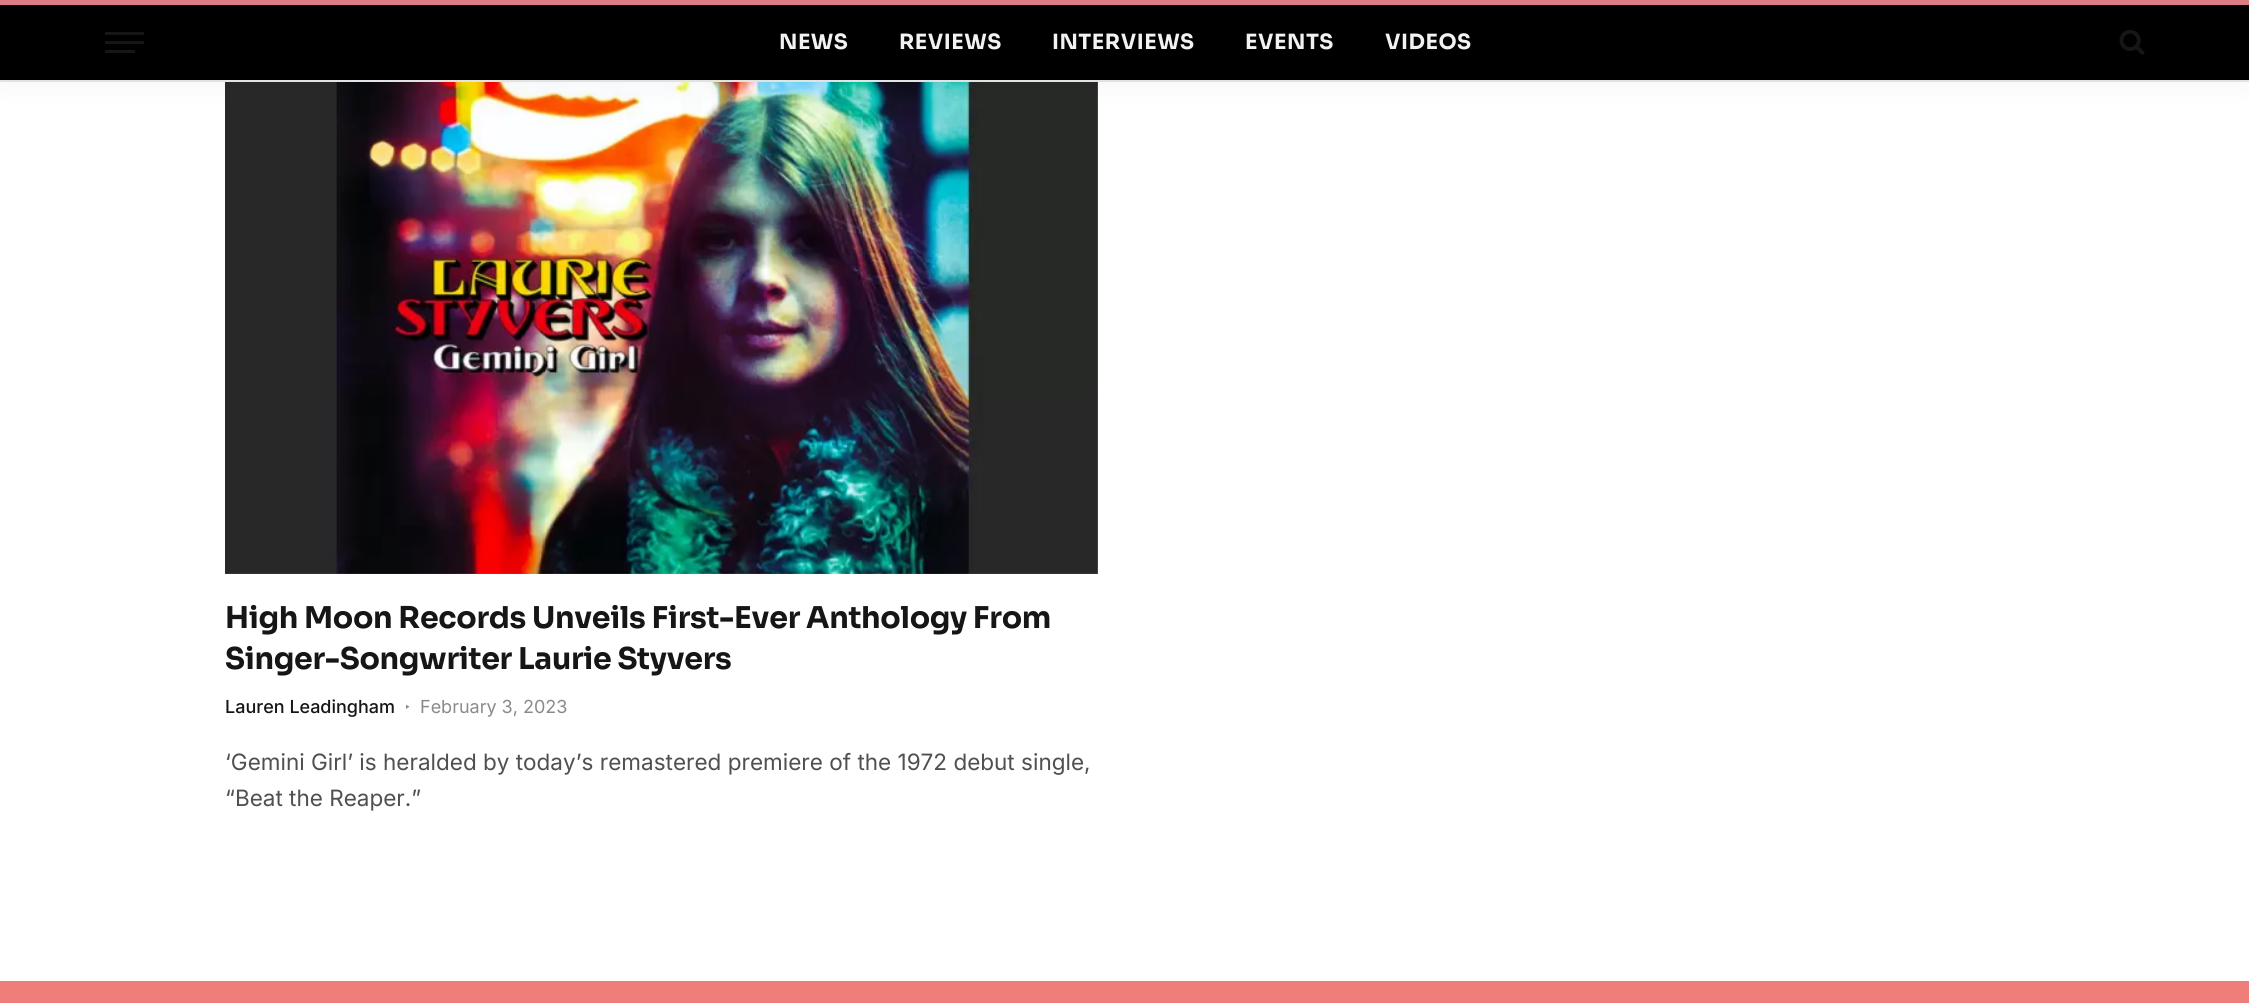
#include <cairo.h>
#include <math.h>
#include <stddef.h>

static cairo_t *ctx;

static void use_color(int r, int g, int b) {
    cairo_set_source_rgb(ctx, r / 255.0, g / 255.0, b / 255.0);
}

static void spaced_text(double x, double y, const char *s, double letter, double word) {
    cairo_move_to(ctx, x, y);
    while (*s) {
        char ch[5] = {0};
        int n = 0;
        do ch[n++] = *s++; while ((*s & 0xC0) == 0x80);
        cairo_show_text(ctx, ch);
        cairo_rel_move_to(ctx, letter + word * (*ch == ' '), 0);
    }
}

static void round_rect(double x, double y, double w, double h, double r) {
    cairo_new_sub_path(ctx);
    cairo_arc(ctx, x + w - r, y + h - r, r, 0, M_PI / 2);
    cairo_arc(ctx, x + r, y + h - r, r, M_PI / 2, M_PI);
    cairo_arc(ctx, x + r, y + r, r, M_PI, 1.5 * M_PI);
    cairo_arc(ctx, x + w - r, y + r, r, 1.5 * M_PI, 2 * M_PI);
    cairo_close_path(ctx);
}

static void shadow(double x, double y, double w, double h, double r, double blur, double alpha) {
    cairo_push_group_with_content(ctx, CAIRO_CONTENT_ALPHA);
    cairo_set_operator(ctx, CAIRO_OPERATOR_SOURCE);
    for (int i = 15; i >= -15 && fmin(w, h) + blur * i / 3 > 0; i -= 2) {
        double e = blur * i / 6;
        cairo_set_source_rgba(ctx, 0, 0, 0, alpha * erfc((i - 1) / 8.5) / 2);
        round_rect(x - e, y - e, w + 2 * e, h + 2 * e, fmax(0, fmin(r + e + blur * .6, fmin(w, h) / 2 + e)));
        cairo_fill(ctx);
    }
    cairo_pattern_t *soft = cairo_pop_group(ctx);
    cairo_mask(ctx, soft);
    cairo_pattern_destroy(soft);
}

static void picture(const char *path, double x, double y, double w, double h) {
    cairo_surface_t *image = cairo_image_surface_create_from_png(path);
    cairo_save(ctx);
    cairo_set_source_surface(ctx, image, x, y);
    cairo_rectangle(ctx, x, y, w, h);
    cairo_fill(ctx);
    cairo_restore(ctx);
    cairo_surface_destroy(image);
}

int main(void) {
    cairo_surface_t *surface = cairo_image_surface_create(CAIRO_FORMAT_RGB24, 2249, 1003);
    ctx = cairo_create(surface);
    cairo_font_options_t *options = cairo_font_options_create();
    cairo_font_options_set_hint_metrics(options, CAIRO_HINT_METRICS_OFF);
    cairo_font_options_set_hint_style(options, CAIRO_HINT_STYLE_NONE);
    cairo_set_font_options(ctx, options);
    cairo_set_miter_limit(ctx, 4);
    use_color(255, 255, 255);
    cairo_paint(ctx);
    picture("img2.png", 225, 82, 873, 492);
    use_color(0, 0, 0);
    shadow(0, 0, 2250, 81, 0, 15, 0.05);
    use_color(0, 0, 0);
    cairo_rectangle(ctx, 0, 5, 2249, 75);
    cairo_fill(ctx);
    use_color(221, 124, 130);
    cairo_rectangle(ctx, 0, 0, 2249, 5);
    cairo_fill(ctx);
    use_color(226, 226, 226);
    cairo_rectangle(ctx, 0, 80, 2249, 2);
    cairo_fill(ctx);
    use_color(22, 22, 22);
    cairo_rectangle(ctx, 105, 50, 30, 3);
    cairo_fill(ctx);
    cairo_rectangle(ctx, 105, 32, 39, 3);
    cairo_fill(ctx);
    cairo_rectangle(ctx, 105, 41, 39, 3);
    cairo_fill(ctx);
    cairo_select_font_face(ctx, "Sora", CAIRO_FONT_SLANT_NORMAL, CAIRO_FONT_WEIGHT_BOLD);
    cairo_set_font_size(ctx, 21);
    use_color(242, 242, 242);
    spaced_text(779, 49, "NEWS", 0.5, 0);
    spaced_text(899, 49, "REVIEWS", 0.5, 0);
    spaced_text(1052, 49, "INTERVIEWS", 0.5, 0);
    spaced_text(1245, 49, "EVENTS", 0.5, 0);
    spaced_text(1385, 49, "VIDEOS", 0.5, 0);
    picture("img1.png", 2119, 30, 26, 25);
    cairo_set_font_size(ctx, 30);
    use_color(22, 22, 22);
    spaced_text(225, 628, "High Moon Records Unveils First-Ever Anthology From", -0.3, 0);
    spaced_text(225, 669, "Singer-Songwriter Laurie Styvers", -0.3, 0);
    cairo_select_font_face(ctx, "Inter Medium", CAIRO_FONT_SLANT_NORMAL, CAIRO_FONT_WEIGHT_NORMAL);
    cairo_set_font_size(ctx, 18);
    cairo_move_to(ctx, 225, 713);
    cairo_show_text(ctx, "Lauren Leadingham");
    cairo_select_font_face(ctx, "Noto Sans", CAIRO_FONT_SLANT_NORMAL, CAIRO_FONT_WEIGHT_NORMAL);
    cairo_set_font_size(ctx, 14);
    use_color(138, 138, 138);
    cairo_move_to(ctx, 405, 712);
    cairo_show_text(ctx, "‣");
    cairo_select_font_face(ctx, "Inter", CAIRO_FONT_SLANT_NORMAL, CAIRO_FONT_WEIGHT_NORMAL);
    cairo_set_font_size(ctx, 18);
    cairo_move_to(ctx, 420, 713);
    cairo_show_text(ctx, "February 3, 2023");
    cairo_set_font_size(ctx, 22.5);
    use_color(80, 80, 80);
    cairo_move_to(ctx, 225, 770);
    cairo_show_text(ctx, "‘Gemini Girl’ is heralded by today’s remastered premiere of the 1972 debut single,");
    cairo_move_to(ctx, 225, 806);
    cairo_show_text(ctx, "“Beat the Reaper.”");
    use_color(239, 126, 122);
    cairo_rectangle(ctx, 0, 981, 2249, 22);
    cairo_fill(ctx);
    cairo_surface_write_to_png(surface, "result.png");
    cairo_font_options_destroy(options);
    cairo_destroy(ctx);
    cairo_surface_destroy(surface);
    return 0;
}
